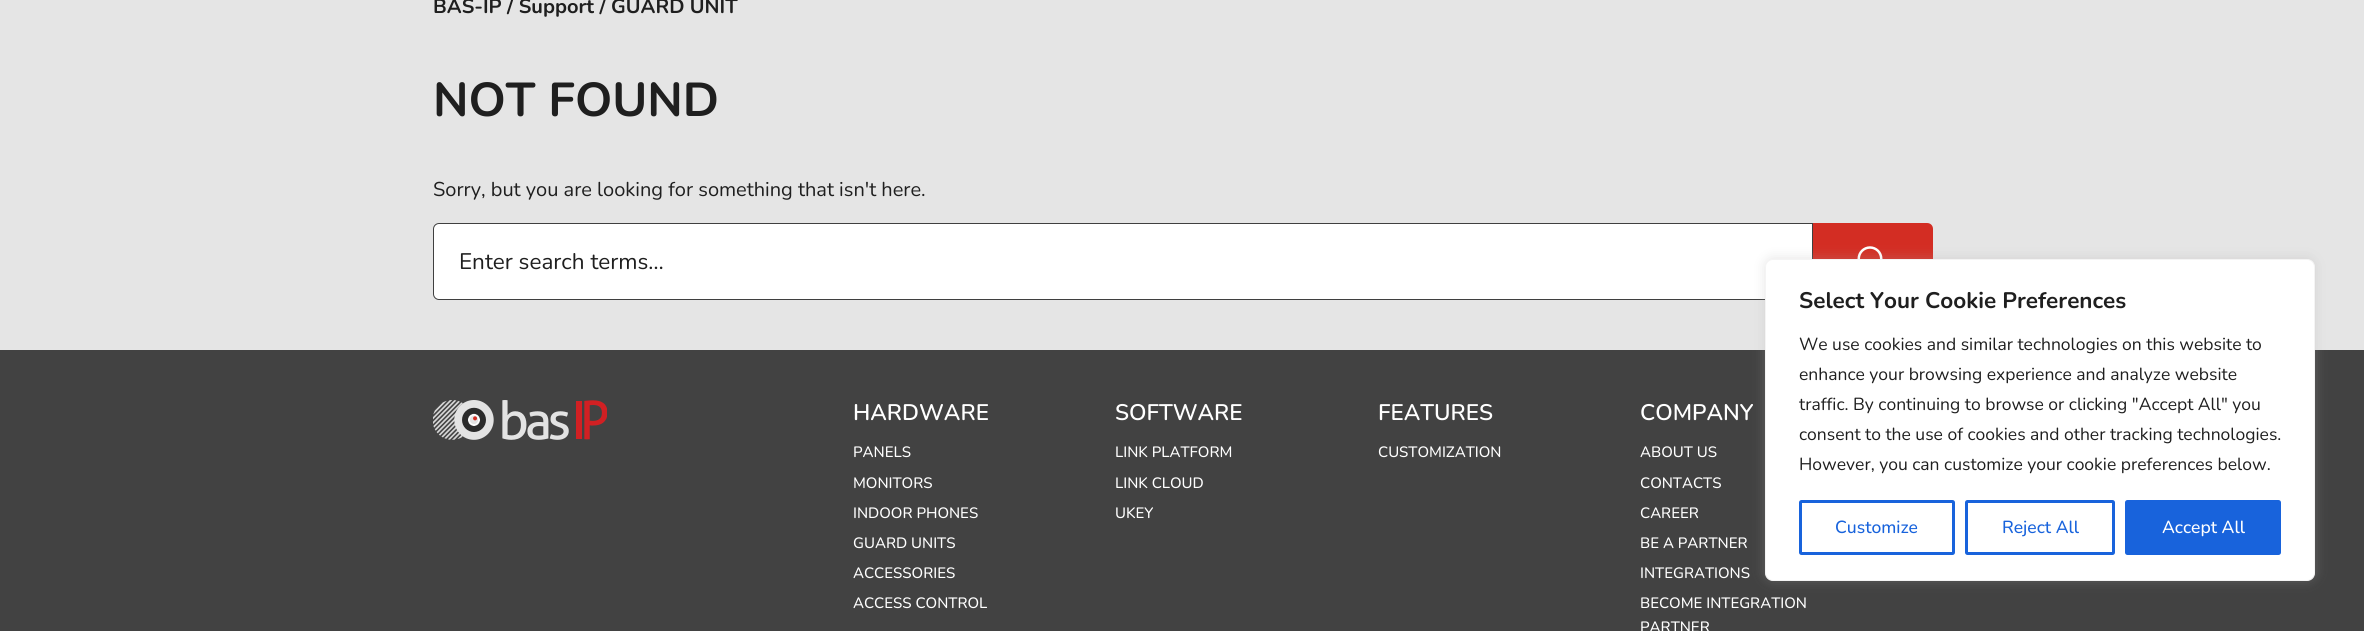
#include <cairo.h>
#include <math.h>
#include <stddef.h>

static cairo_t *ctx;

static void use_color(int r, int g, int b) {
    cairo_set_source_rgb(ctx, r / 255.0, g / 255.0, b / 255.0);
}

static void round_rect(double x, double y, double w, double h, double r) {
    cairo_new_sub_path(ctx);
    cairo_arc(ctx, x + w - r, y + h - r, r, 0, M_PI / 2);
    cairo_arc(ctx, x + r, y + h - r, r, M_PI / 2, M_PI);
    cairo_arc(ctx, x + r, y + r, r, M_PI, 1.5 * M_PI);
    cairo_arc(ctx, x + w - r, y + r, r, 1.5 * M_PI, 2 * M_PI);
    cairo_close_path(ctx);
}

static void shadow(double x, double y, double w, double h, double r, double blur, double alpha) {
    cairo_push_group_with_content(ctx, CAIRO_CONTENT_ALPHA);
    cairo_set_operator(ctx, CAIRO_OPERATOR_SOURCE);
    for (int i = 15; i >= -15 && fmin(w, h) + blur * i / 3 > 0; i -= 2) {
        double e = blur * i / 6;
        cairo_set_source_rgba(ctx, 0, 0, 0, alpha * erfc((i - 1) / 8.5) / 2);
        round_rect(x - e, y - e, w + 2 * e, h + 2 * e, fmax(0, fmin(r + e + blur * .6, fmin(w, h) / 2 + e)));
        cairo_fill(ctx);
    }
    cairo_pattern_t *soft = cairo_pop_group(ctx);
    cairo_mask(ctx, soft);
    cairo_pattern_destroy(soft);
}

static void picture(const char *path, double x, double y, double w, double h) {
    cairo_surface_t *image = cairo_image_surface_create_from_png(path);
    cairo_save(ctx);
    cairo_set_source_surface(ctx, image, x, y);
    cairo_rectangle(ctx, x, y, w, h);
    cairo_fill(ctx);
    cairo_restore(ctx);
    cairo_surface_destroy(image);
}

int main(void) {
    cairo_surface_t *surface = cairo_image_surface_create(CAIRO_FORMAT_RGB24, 2364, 631);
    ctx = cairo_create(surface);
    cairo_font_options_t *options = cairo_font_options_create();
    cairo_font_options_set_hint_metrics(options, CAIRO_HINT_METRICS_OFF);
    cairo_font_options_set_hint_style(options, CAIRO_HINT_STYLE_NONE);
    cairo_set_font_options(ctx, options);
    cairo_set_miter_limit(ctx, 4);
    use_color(229, 229, 229);
    cairo_paint(ctx);
    cairo_select_font_face(ctx, "Nunito", CAIRO_FONT_SLANT_NORMAL, CAIRO_FONT_WEIGHT_BOLD);
    cairo_set_font_size(ctx, 20);
    use_color(31, 31, 31);
    cairo_move_to(ctx, 433, 13);
    cairo_show_text(ctx, "BAS-IP / Support / GUARD UNIT");
    cairo_set_font_size(ctx, 47.5);
    cairo_move_to(ctx, 433, 116);
    cairo_show_text(ctx, "NOT FOUND");
    cairo_select_font_face(ctx, "Nunito", CAIRO_FONT_SLANT_NORMAL, CAIRO_FONT_WEIGHT_NORMAL);
    cairo_set_font_size(ctx, 20);
    cairo_move_to(ctx, 433, 196);
    cairo_show_text(ctx, "Sorry, but you are looking for something that isn't here.");
    use_color(255, 255, 255);
    cairo_new_path(ctx);
    cairo_move_to(ctx, 439, 223.5);
    cairo_line_to(ctx, 1812.5, 223.5);
    cairo_line_to(ctx, 1812.5, 299.5);
    cairo_line_to(ctx, 439, 299.5);
    cairo_curve_to(ctx, 436, 299.5, 433.5, 297, 433.5, 294);
    cairo_line_to(ctx, 433.5, 229);
    cairo_curve_to(ctx, 433.5, 226, 436, 223.5, 439, 223.5);
    cairo_close_path(ctx);
    cairo_fill_preserve(ctx);
    use_color(63, 63, 63);
    cairo_set_line_width(ctx, 1);
    cairo_stroke(ctx);
    cairo_set_font_size(ctx, 22.5);
    use_color(31, 31, 31);
    cairo_move_to(ctx, 459, 269);
    cairo_show_text(ctx, "Enter search terms…");
    use_color(211, 45, 35);
    cairo_new_path(ctx);
    cairo_move_to(ctx, 1813, 223);
    cairo_line_to(ctx, 1927, 223);
    cairo_curve_to(ctx, 1930.5, 223, 1933, 225.5, 1933, 229);
    cairo_line_to(ctx, 1933, 294);
    cairo_curve_to(ctx, 1933, 297.5, 1930.5, 300, 1927, 300);
    cairo_line_to(ctx, 1813, 300);
    cairo_close_path(ctx);
    cairo_fill(ctx);
    picture("img1.png", 1857, 246, 26, 13);
    use_color(66, 66, 66);
    cairo_rectangle(ctx, 0, 350, 2364, 281);
    cairo_fill(ctx);
    picture("img2.png", 433, 400, 174, 40);
    cairo_select_font_face(ctx, "Nunito SemiBold", CAIRO_FONT_SLANT_NORMAL, CAIRO_FONT_WEIGHT_NORMAL);
    use_color(255, 255, 255);
    cairo_move_to(ctx, 853, 420);
    cairo_show_text(ctx, "HARDWARE");
    cairo_select_font_face(ctx, "Nunito Medium", CAIRO_FONT_SLANT_NORMAL, CAIRO_FONT_WEIGHT_NORMAL);
    cairo_set_font_size(ctx, 15);
    cairo_move_to(ctx, 853, 457);
    cairo_show_text(ctx, "PANELS");
    cairo_move_to(ctx, 853, 488);
    cairo_show_text(ctx, "MONITORS");
    cairo_move_to(ctx, 853, 518);
    cairo_show_text(ctx, "INDOOR PHONES");
    cairo_move_to(ctx, 853, 548);
    cairo_show_text(ctx, "GUARD UNITS");
    cairo_move_to(ctx, 853, 578);
    cairo_show_text(ctx, "ACCESSORIES");
    cairo_move_to(ctx, 853, 608);
    cairo_show_text(ctx, "ACCESS CONTROL");
    cairo_select_font_face(ctx, "Nunito SemiBold", CAIRO_FONT_SLANT_NORMAL, CAIRO_FONT_WEIGHT_NORMAL);
    cairo_set_font_size(ctx, 22.5);
    cairo_move_to(ctx, 1115, 420);
    cairo_show_text(ctx, "SOFTWARE");
    cairo_select_font_face(ctx, "Nunito Medium", CAIRO_FONT_SLANT_NORMAL, CAIRO_FONT_WEIGHT_NORMAL);
    cairo_set_font_size(ctx, 15);
    cairo_move_to(ctx, 1115, 457);
    cairo_show_text(ctx, "LINK PLATFORM");
    cairo_move_to(ctx, 1115, 488);
    cairo_show_text(ctx, "LINK CLOUD");
    cairo_move_to(ctx, 1115, 518);
    cairo_show_text(ctx, "UKEY");
    cairo_select_font_face(ctx, "Nunito SemiBold", CAIRO_FONT_SLANT_NORMAL, CAIRO_FONT_WEIGHT_NORMAL);
    cairo_set_font_size(ctx, 22.5);
    cairo_move_to(ctx, 1378, 420);
    cairo_show_text(ctx, "FEATURES");
    cairo_select_font_face(ctx, "Nunito Medium", CAIRO_FONT_SLANT_NORMAL, CAIRO_FONT_WEIGHT_NORMAL);
    cairo_set_font_size(ctx, 15);
    cairo_move_to(ctx, 1378, 457);
    cairo_show_text(ctx, "CUSTOMIZATION");
    cairo_select_font_face(ctx, "Nunito SemiBold", CAIRO_FONT_SLANT_NORMAL, CAIRO_FONT_WEIGHT_NORMAL);
    cairo_set_font_size(ctx, 22.5);
    cairo_move_to(ctx, 1640, 420);
    cairo_show_text(ctx, "COMPANY");
    cairo_select_font_face(ctx, "Nunito Medium", CAIRO_FONT_SLANT_NORMAL, CAIRO_FONT_WEIGHT_NORMAL);
    cairo_set_font_size(ctx, 15);
    cairo_move_to(ctx, 1640, 457);
    cairo_show_text(ctx, "ABOUT US");
    cairo_move_to(ctx, 1640, 488);
    cairo_show_text(ctx, "CONTACTS");
    cairo_move_to(ctx, 1640, 518);
    cairo_show_text(ctx, "CAREER");
    cairo_move_to(ctx, 1640, 548);
    cairo_show_text(ctx, "BE A PARTNER");
    cairo_move_to(ctx, 1640, 578);
    cairo_show_text(ctx, "INTEGRATIONS");
    cairo_move_to(ctx, 1640, 608);
    cairo_show_text(ctx, "BECOME INTEGRATION");
    cairo_move_to(ctx, 1640, 632);
    cairo_show_text(ctx, "PARTNER");
    use_color(172, 171, 171);
    shadow(1765, 258, 550, 322, 8, 6, 0.3);
    use_color(255, 255, 255);
    round_rect(1765.5, 259.5, 549, 321, 7.5);
    cairo_fill_preserve(ctx);
    use_color(244, 244, 244);
    cairo_stroke(ctx);
    cairo_select_font_face(ctx, "Nunito", CAIRO_FONT_SLANT_NORMAL, CAIRO_FONT_WEIGHT_BOLD);
    cairo_set_font_size(ctx, 22.5);
    use_color(31, 31, 31);
    cairo_move_to(ctx, 1799, 308);
    cairo_show_text(ctx, "Select Your Cookie Preferences");
    cairo_select_font_face(ctx, "Nunito", CAIRO_FONT_SLANT_NORMAL, CAIRO_FONT_WEIGHT_NORMAL);
    cairo_set_font_size(ctx, 17.5);
    cairo_move_to(ctx, 1799, 350);
    cairo_show_text(ctx, "We use cookies and similar technologies on this website to");
    cairo_move_to(ctx, 1799, 380);
    cairo_show_text(ctx, "enhance your browsing experience and analyze website");
    cairo_move_to(ctx, 1799, 410);
    cairo_show_text(ctx, "traffic. By continuing to browse or clicking \"Accept All\" you");
    cairo_move_to(ctx, 1799, 440);
    cairo_show_text(ctx, "consent to the use of cookies and other tracking technologies.");
    cairo_move_to(ctx, 1799, 470);
    cairo_show_text(ctx, "However, you can customize your cookie preferences below.");
    round_rect(1800.5, 501.5, 153, 52, 1);
    use_color(24, 99, 220);
    cairo_set_line_width(ctx, 3);
    cairo_stroke(ctx);
    cairo_select_font_face(ctx, "Nunito Medium", CAIRO_FONT_SLANT_NORMAL, CAIRO_FONT_WEIGHT_NORMAL);
    cairo_move_to(ctx, 1835, 533);
    cairo_show_text(ctx, "Customize");
    round_rect(1966.5, 501.5, 147, 52, 1);
    cairo_stroke(ctx);
    cairo_move_to(ctx, 2002, 533);
    cairo_show_text(ctx, "Reject All");
    round_rect(2126.5, 501.5, 153, 52, 1);
    cairo_fill_preserve(ctx);
    cairo_stroke(ctx);
    use_color(255, 255, 255);
    cairo_move_to(ctx, 2162, 533);
    cairo_show_text(ctx, "Accept All");
    cairo_surface_write_to_png(surface, "result.png");
    cairo_font_options_destroy(options);
    cairo_destroy(ctx);
    cairo_surface_destroy(surface);
    return 0;
}
